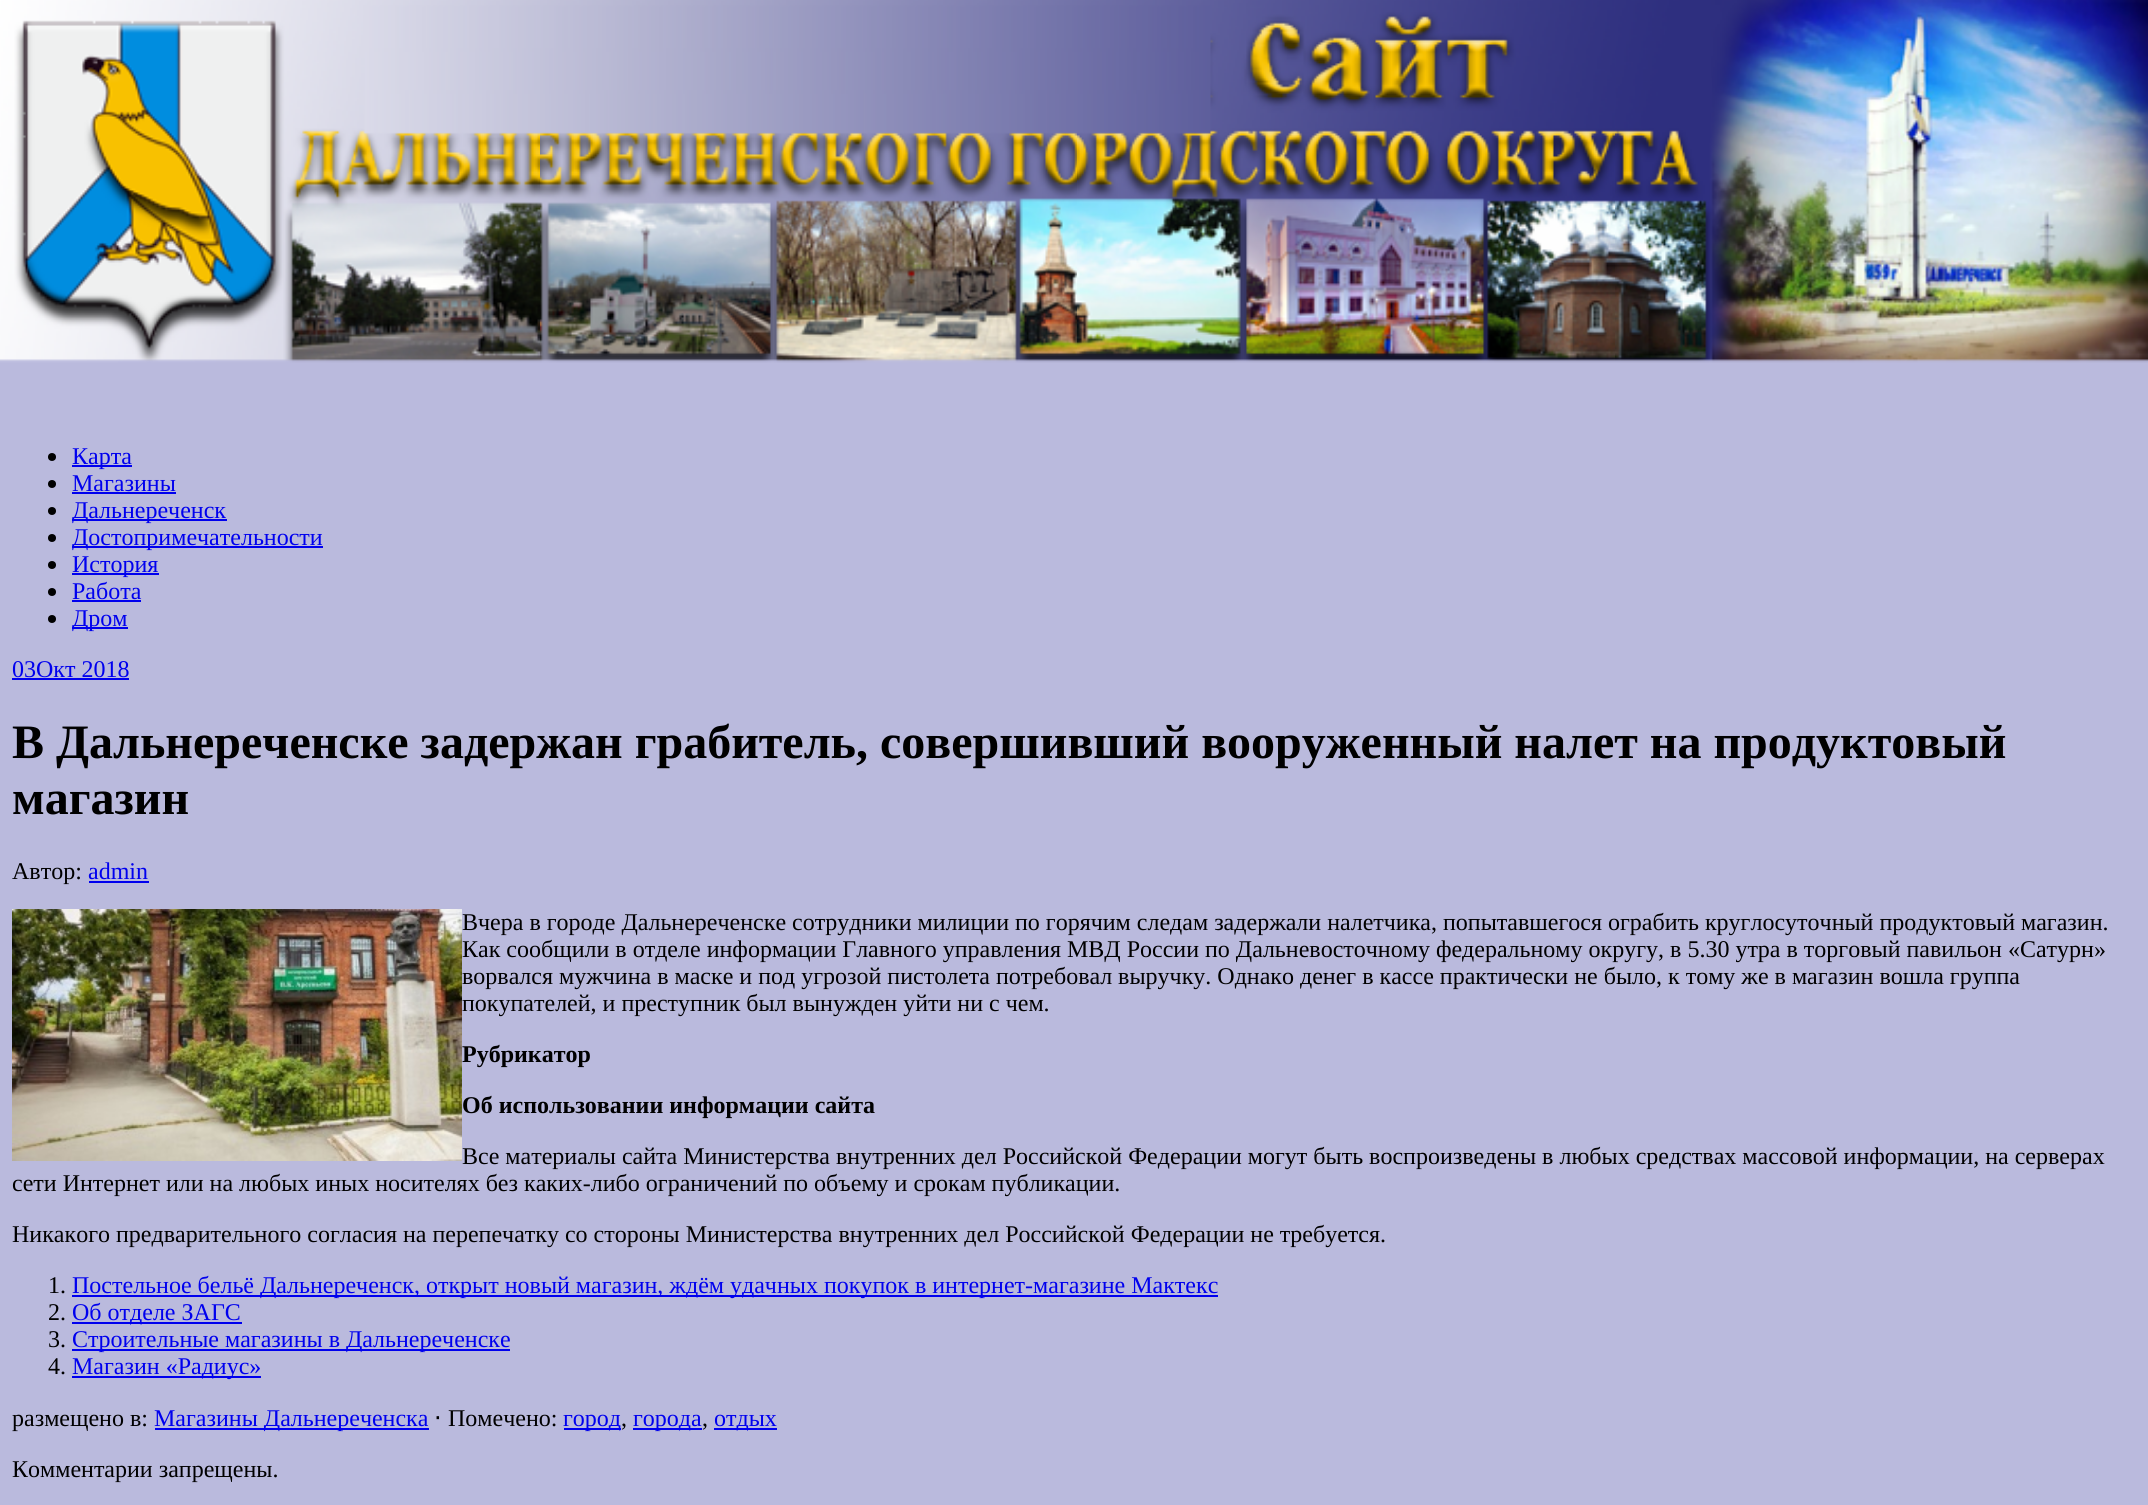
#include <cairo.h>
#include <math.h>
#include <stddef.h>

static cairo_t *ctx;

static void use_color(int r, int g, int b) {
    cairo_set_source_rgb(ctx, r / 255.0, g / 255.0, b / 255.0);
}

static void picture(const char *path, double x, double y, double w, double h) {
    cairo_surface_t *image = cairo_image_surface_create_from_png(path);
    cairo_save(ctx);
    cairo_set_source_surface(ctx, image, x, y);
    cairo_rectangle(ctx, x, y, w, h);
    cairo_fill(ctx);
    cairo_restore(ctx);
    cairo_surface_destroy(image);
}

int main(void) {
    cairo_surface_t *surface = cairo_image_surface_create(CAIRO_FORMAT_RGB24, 2148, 1505);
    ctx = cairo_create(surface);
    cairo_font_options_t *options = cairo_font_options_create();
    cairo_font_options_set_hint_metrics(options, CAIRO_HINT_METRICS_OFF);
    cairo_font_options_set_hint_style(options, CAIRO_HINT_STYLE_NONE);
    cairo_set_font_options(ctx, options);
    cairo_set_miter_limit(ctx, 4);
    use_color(186, 186, 221);
    cairo_paint(ctx);
    picture("img1.png", 0, 0, 2148, 363);
    use_color(0, 0, 0);
    cairo_arc(ctx, 52, 457, 4, 0, 2 * M_PI);
    cairo_fill(ctx);
    use_color(0, 0, 238);
    cairo_rectangle(ctx, 72, 465, 60, 2);
    cairo_fill(ctx);
    cairo_select_font_face(ctx, "Liberation Serif", CAIRO_FONT_SLANT_NORMAL, CAIRO_FONT_WEIGHT_NORMAL);
    cairo_set_font_size(ctx, 24);
    cairo_move_to(ctx, 72, 464);
    cairo_show_text(ctx, "Карта");
    use_color(0, 0, 0);
    cairo_new_path(ctx);
    cairo_arc(ctx, 52, 484, 4, 0, 2 * M_PI);
    cairo_fill(ctx);
    use_color(0, 0, 238);
    cairo_move_to(ctx, 72, 491);
    cairo_show_text(ctx, "Магазины");
    cairo_rectangle(ctx, 72, 492, 104, 2);
    cairo_fill(ctx);
    use_color(0, 0, 0);
    cairo_arc(ctx, 52, 511, 4, 0, 2 * M_PI);
    cairo_fill(ctx);
    use_color(0, 0, 238);
    cairo_rectangle(ctx, 72, 519, 155, 2);
    cairo_fill(ctx);
    cairo_move_to(ctx, 72, 518);
    cairo_show_text(ctx, "Дальнереченск");
    use_color(0, 0, 0);
    cairo_new_path(ctx);
    cairo_arc(ctx, 52, 538, 4, 0, 2 * M_PI);
    cairo_fill(ctx);
    use_color(0, 0, 238);
    cairo_rectangle(ctx, 72, 546, 251, 2);
    cairo_fill(ctx);
    cairo_move_to(ctx, 72, 545);
    cairo_show_text(ctx, "Достопримечательности");
    use_color(0, 0, 0);
    cairo_new_path(ctx);
    cairo_arc(ctx, 52, 565, 4, 0, 2 * M_PI);
    cairo_fill(ctx);
    use_color(0, 0, 238);
    cairo_rectangle(ctx, 72, 573, 87, 2);
    cairo_fill(ctx);
    cairo_move_to(ctx, 72, 572);
    cairo_show_text(ctx, "История");
    use_color(0, 0, 0);
    cairo_new_path(ctx);
    cairo_arc(ctx, 52, 592, 4, 0, 2 * M_PI);
    cairo_fill(ctx);
    use_color(0, 0, 238);
    cairo_move_to(ctx, 72, 599);
    cairo_show_text(ctx, "Работа");
    cairo_rectangle(ctx, 72, 600, 69, 2);
    cairo_fill(ctx);
    use_color(0, 0, 0);
    cairo_arc(ctx, 52, 619, 4, 0, 2 * M_PI);
    cairo_fill(ctx);
    use_color(0, 0, 238);
    cairo_rectangle(ctx, 72, 627, 56, 2);
    cairo_fill(ctx);
    cairo_move_to(ctx, 72, 626);
    cairo_show_text(ctx, "Дром");
    cairo_move_to(ctx, 12, 677);
    cairo_show_text(ctx, "03Окт 2018");
    cairo_rectangle(ctx, 12, 678, 117, 2);
    cairo_fill(ctx);
    cairo_select_font_face(ctx, "Liberation Serif", CAIRO_FONT_SLANT_NORMAL, CAIRO_FONT_WEIGHT_BOLD);
    cairo_set_font_size(ctx, 48);
    use_color(0, 0, 0);
    cairo_move_to(ctx, 12, 758);
    cairo_show_text(ctx, "В Дальнереченске задержан грабитель, совершивший вооруженный налет на продуктовый");
    cairo_move_to(ctx, 12, 814);
    cairo_show_text(ctx, "магазин");
    cairo_select_font_face(ctx, "Liberation Serif", CAIRO_FONT_SLANT_NORMAL, CAIRO_FONT_WEIGHT_NORMAL);
    cairo_set_font_size(ctx, 24);
    cairo_move_to(ctx, 12, 879);
    cairo_show_text(ctx, "Автор:");
    use_color(0, 0, 238);
    cairo_move_to(ctx, 88, 879);
    cairo_show_text(ctx, "admin");
    cairo_rectangle(ctx, 89, 881, 60, 2);
    cairo_fill(ctx);
    picture("img2.png", 12, 909, 450, 252);
    use_color(0, 0, 0);
    cairo_move_to(ctx, 462, 930);
    cairo_show_text(ctx, "Вчера в городе Дальнереченске сотрудники милиции по горячим следам задержали налетчика, попытавшегося ограбить круглосуточный продуктовый магазин.");
    cairo_move_to(ctx, 462, 957);
    cairo_show_text(ctx, "Как сообщили в отделе информации Главного управления МВД России по Дальневосточному федеральному округу, в 5.30 утра в торговый павильон «Сатурн»");
    cairo_move_to(ctx, 462, 984);
    cairo_show_text(ctx, "ворвался мужчина в маске и под угрозой пистолета потребовал выручку. Однако денег в кассе практически не было, к тому же в магазин вошла группа");
    cairo_move_to(ctx, 462, 1011);
    cairo_show_text(ctx, "покупателей, и преступник был вынужден уйти ни с чем.");
    cairo_select_font_face(ctx, "Liberation Serif", CAIRO_FONT_SLANT_NORMAL, CAIRO_FONT_WEIGHT_BOLD);
    cairo_move_to(ctx, 462, 1062);
    cairo_show_text(ctx, "Рубрикатор");
    cairo_move_to(ctx, 462, 1113);
    cairo_show_text(ctx, "Об использовании информации сайта");
    cairo_select_font_face(ctx, "Liberation Serif", CAIRO_FONT_SLANT_NORMAL, CAIRO_FONT_WEIGHT_NORMAL);
    cairo_move_to(ctx, 462, 1164);
    cairo_show_text(ctx, "Все материалы сайта Министерства внутренних дел Российской Федерации могут быть воспроизведены в любых средствах массовой информации, на серверах");
    cairo_move_to(ctx, 12, 1191);
    cairo_show_text(ctx, "сети Интернет или на любых иных носителях без каких-либо ограничений по объему и срокам публикации.");
    cairo_move_to(ctx, 12, 1242);
    cairo_show_text(ctx, "Никакого предварительного согласия на перепечатку со стороны Министерства внутренних дел Российской Федерации не требуется.");
    cairo_move_to(ctx, 48, 1293);
    cairo_show_text(ctx, "1.");
    use_color(0, 0, 238);
    cairo_rectangle(ctx, 72, 1295, 1146, 2);
    cairo_fill(ctx);
    cairo_move_to(ctx, 72, 1293);
    cairo_show_text(ctx, "Постельное бельё Дальнереченск, открыт новый магазин, ждём удачных покупок в интернет-магазине Мактекс");
    use_color(0, 0, 0);
    cairo_move_to(ctx, 48, 1320);
    cairo_show_text(ctx, "2.");
    use_color(0, 0, 238);
    cairo_rectangle(ctx, 72, 1322, 170, 2);
    cairo_fill(ctx);
    cairo_move_to(ctx, 72, 1320);
    cairo_show_text(ctx, "Об отделе ЗАГС");
    use_color(0, 0, 0);
    cairo_move_to(ctx, 48, 1347);
    cairo_show_text(ctx, "3.");
    use_color(0, 0, 238);
    cairo_rectangle(ctx, 72, 1349, 438, 2);
    cairo_fill(ctx);
    cairo_move_to(ctx, 72, 1347);
    cairo_show_text(ctx, "Строительные магазины в Дальнереченске");
    use_color(0, 0, 0);
    cairo_move_to(ctx, 48, 1374);
    cairo_show_text(ctx, "4.");
    use_color(0, 0, 238);
    cairo_rectangle(ctx, 72, 1376, 189, 2);
    cairo_fill(ctx);
    cairo_move_to(ctx, 72, 1374);
    cairo_show_text(ctx, "Магазин «Радиус»");
    use_color(0, 0, 0);
    cairo_move_to(ctx, 12, 1426);
    cairo_show_text(ctx, "размещено в:");
    use_color(0, 0, 238);
    cairo_rectangle(ctx, 155, 1428, 274, 2);
    cairo_fill(ctx);
    cairo_move_to(ctx, 154, 1426);
    cairo_show_text(ctx, "Магазины Дальнереченска");
    cairo_select_font_face(ctx, "DejaVu Sans", CAIRO_FONT_SLANT_NORMAL, CAIRO_FONT_WEIGHT_NORMAL);
    use_color(0, 0, 0);
    cairo_move_to(ctx, 434, 1426);
    cairo_show_text(ctx, "⋅");
    cairo_select_font_face(ctx, "Liberation Serif", CAIRO_FONT_SLANT_NORMAL, CAIRO_FONT_WEIGHT_NORMAL);
    cairo_move_to(ctx, 448, 1426);
    cairo_show_text(ctx, "Помечено:");
    use_color(0, 0, 238);
    cairo_rectangle(ctx, 564, 1428, 57, 2);
    cairo_fill(ctx);
    cairo_move_to(ctx, 563, 1426);
    cairo_show_text(ctx, "город");
    cairo_rectangle(ctx, 633, 1428, 69, 2);
    cairo_fill(ctx);
    cairo_move_to(ctx, 633, 1426);
    cairo_show_text(ctx, "города");
    cairo_rectangle(ctx, 714, 1428, 63, 2);
    cairo_fill(ctx);
    cairo_move_to(ctx, 714, 1426);
    cairo_show_text(ctx, "отдых");
    use_color(0, 0, 0);
    cairo_move_to(ctx, 621, 1426);
    cairo_show_text(ctx, ",");
    cairo_move_to(ctx, 702, 1426);
    cairo_show_text(ctx, ",");
    cairo_move_to(ctx, 12, 1477);
    cairo_show_text(ctx, "Комментарии запрещены.");
    cairo_surface_write_to_png(surface, "result.png");
    cairo_font_options_destroy(options);
    cairo_destroy(ctx);
    cairo_surface_destroy(surface);
    return 0;
}
